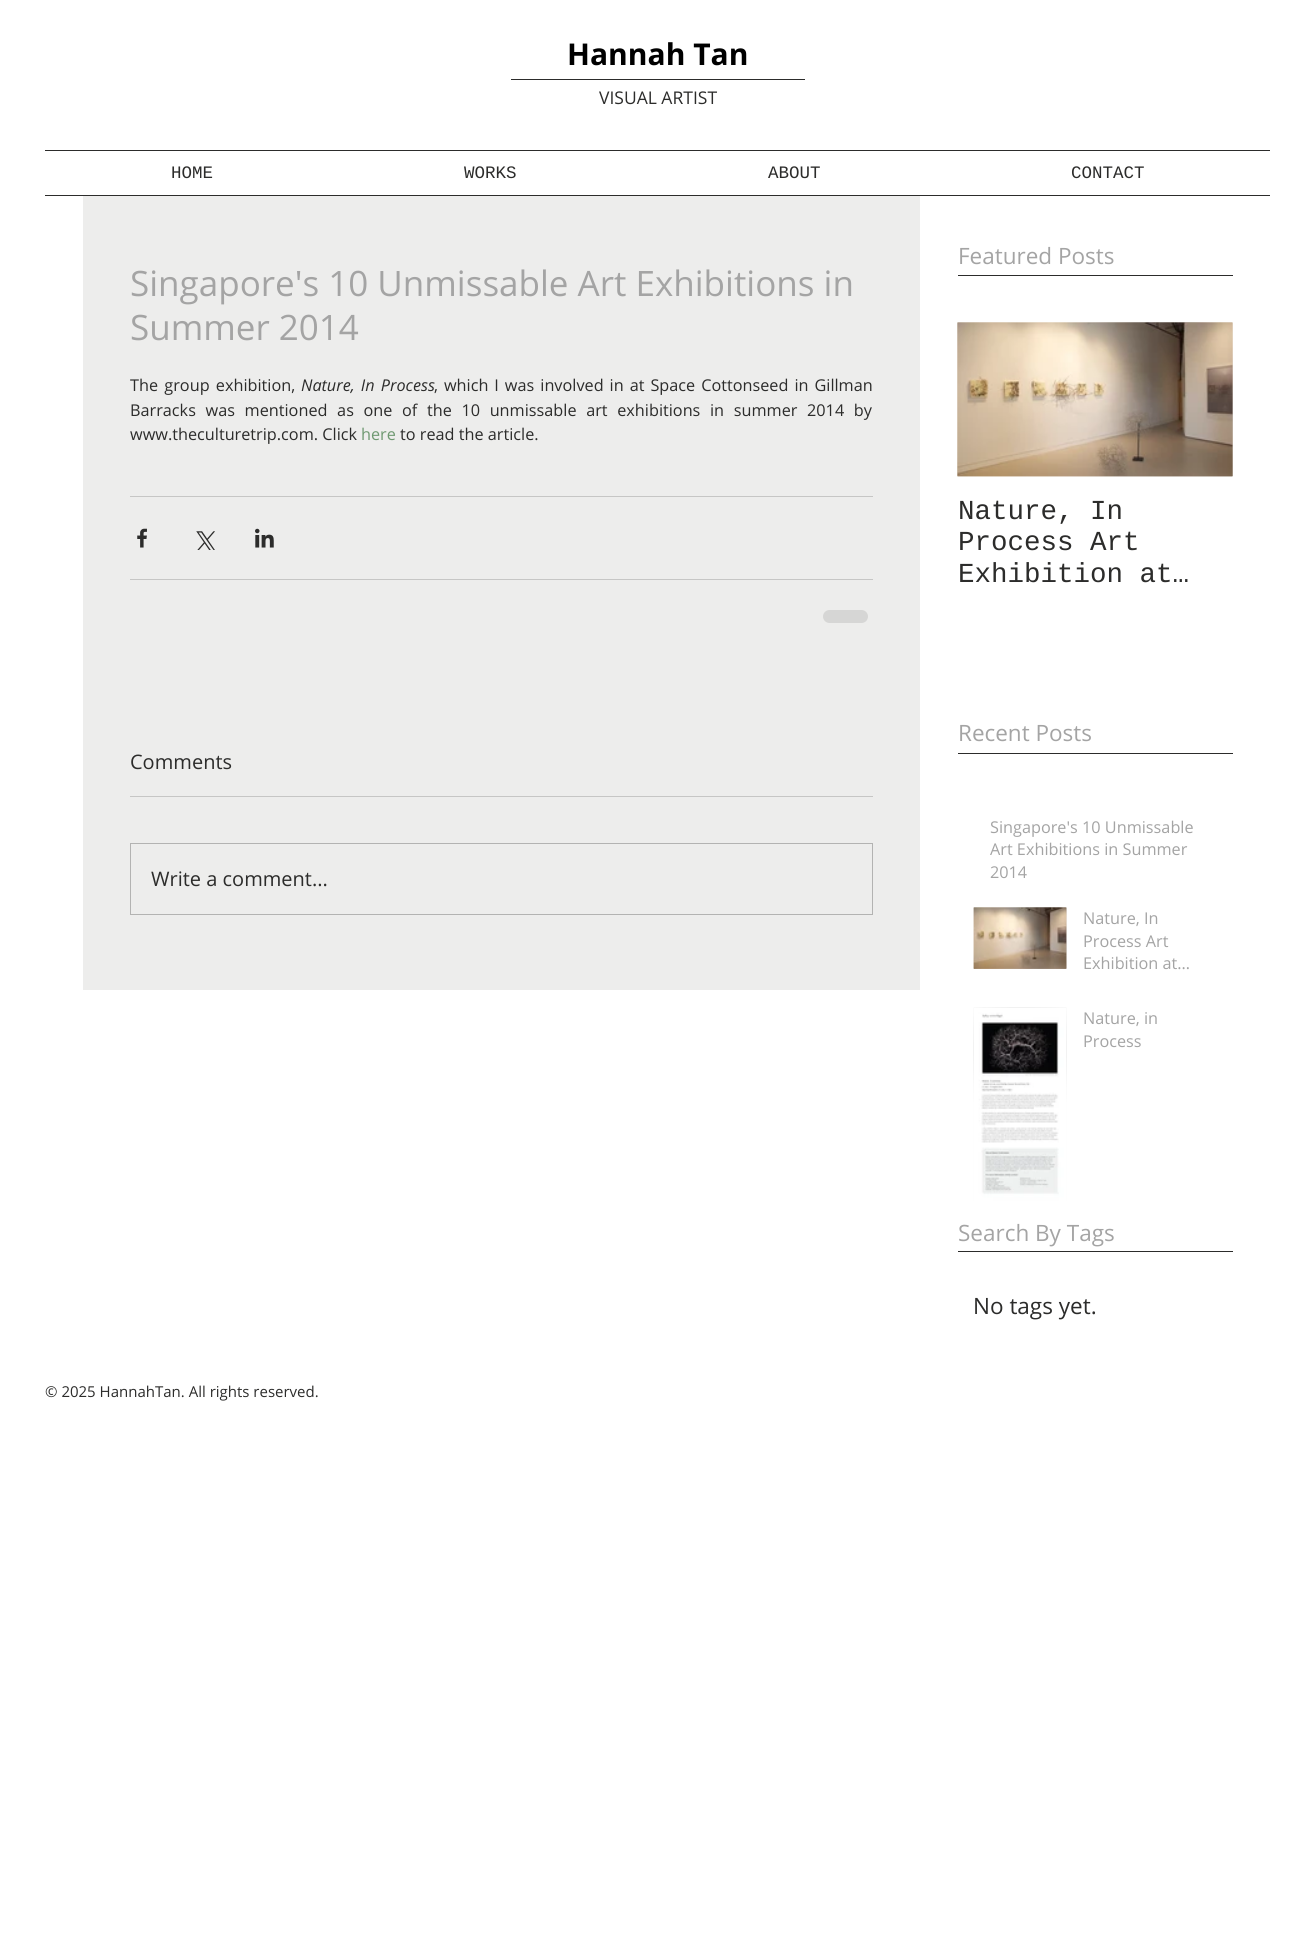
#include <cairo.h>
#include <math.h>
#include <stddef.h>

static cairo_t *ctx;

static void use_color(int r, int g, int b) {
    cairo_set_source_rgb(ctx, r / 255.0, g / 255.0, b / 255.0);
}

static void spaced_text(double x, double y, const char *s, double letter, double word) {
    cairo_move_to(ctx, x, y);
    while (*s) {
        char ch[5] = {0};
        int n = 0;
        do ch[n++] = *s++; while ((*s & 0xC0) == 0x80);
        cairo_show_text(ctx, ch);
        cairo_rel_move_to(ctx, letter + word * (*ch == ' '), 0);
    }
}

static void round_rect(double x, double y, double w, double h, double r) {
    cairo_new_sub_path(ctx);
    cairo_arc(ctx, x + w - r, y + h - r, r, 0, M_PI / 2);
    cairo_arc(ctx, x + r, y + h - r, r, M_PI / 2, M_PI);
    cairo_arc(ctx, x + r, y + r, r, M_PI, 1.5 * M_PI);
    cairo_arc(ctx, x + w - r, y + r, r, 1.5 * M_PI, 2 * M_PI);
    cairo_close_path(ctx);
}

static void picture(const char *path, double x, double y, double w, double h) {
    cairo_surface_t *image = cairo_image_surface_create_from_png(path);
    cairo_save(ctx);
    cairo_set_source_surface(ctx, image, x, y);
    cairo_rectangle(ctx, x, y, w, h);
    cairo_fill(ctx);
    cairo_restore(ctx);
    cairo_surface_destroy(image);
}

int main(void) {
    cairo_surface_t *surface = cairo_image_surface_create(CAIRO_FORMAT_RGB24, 1315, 1946);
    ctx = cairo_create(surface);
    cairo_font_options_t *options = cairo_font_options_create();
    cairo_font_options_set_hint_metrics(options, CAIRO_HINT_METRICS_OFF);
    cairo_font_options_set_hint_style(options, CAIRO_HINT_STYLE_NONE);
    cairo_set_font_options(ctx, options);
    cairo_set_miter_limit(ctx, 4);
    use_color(255, 255, 255);
    cairo_paint(ctx);
    cairo_select_font_face(ctx, "Open Sans", CAIRO_FONT_SLANT_NORMAL, CAIRO_FONT_WEIGHT_BOLD);
    cairo_set_font_size(ctx, 30);
    use_color(0, 0, 0);
    cairo_move_to(ctx, 567, 65);
    cairo_show_text(ctx, "Hannah Tan");
    use_color(44, 44, 43);
    cairo_rectangle(ctx, 511, 79, 294, 1);
    cairo_fill(ctx);
    cairo_select_font_face(ctx, "Open Sans", CAIRO_FONT_SLANT_NORMAL, CAIRO_FONT_WEIGHT_NORMAL);
    cairo_set_font_size(ctx, 17.5);
    cairo_move_to(ctx, 599, 104);
    cairo_show_text(ctx, "VISUAL ARTIST");
    cairo_rectangle(ctx, 45, 150, 1225, 1);
    cairo_fill(ctx);
    cairo_rectangle(ctx, 45, 195, 1225, 1);
    cairo_fill(ctx);
    cairo_select_font_face(ctx, "Liberation Mono", CAIRO_FONT_SLANT_NORMAL, CAIRO_FONT_WEIGHT_NORMAL);
    cairo_move_to(ctx, 171, 178);
    cairo_show_text(ctx, "HOME");
    cairo_move_to(ctx, 464, 178);
    cairo_show_text(ctx, "WORKS");
    cairo_move_to(ctx, 768, 178);
    cairo_show_text(ctx, "ABOUT");
    cairo_move_to(ctx, 1071, 178);
    cairo_show_text(ctx, "CONTACT");
    use_color(237, 237, 236);
    cairo_rectangle(ctx, 83, 196, 837, 794);
    cairo_fill(ctx);
    cairo_select_font_face(ctx, "Open Sans", CAIRO_FONT_SLANT_NORMAL, CAIRO_FONT_WEIGHT_NORMAL);
    cairo_set_font_size(ctx, 35);
    use_color(164, 164, 164);
    cairo_move_to(ctx, 130, 296);
    cairo_show_text(ctx, "Singapore's 10 Unmissable Art Exhibitions in");
    cairo_move_to(ctx, 130, 340);
    cairo_show_text(ctx, "Summer 2014");
    cairo_set_font_size(ctx, 16.25);
    use_color(44, 44, 43);
    spaced_text(130, 391, "The group exhibition,", 0, 2);
    cairo_select_font_face(ctx, "Open Sans", CAIRO_FONT_SLANT_ITALIC, CAIRO_FONT_WEIGHT_NORMAL);
    spaced_text(301, 391, "Nature, In Process", 0, 2);
    cairo_select_font_face(ctx, "Open Sans", CAIRO_FONT_SLANT_NORMAL, CAIRO_FONT_WEIGHT_NORMAL);
    spaced_text(434, 391, ", which I was involved in at Space Cottonseed in Gillman", 0, 1.75);
    spaced_text(130, 416, "Barracks was mentioned as one of the 10 unmissable art exhibitions in summer 2014 by", 0, 5.4);
    cairo_move_to(ctx, 130, 440);
    cairo_show_text(ctx, "www.theculturetrip.com. Click");
    use_color(111, 153, 113);
    cairo_move_to(ctx, 361, 440);
    cairo_show_text(ctx, "here");
    use_color(44, 44, 43);
    cairo_move_to(ctx, 400, 440);
    cairo_show_text(ctx, "to read the article.");
    use_color(198, 198, 197);
    cairo_rectangle(ctx, 130, 496, 743, 1);
    cairo_fill(ctx);
    picture("img1.png", 137, 528, 10, 20);
    picture("img2.png", 196, 531, 19, 19);
    picture("img3.png", 255, 528, 19, 20);
    cairo_rectangle(ctx, 130, 579, 743, 1);
    cairo_fill(ctx);
    use_color(214, 214, 213);
    round_rect(823, 610, 45, 13, 6.5);
    cairo_fill(ctx);
    cairo_set_font_size(ctx, 20);
    use_color(44, 44, 43);
    cairo_move_to(ctx, 130, 769);
    cairo_show_text(ctx, "Comments");
    use_color(198, 198, 197);
    cairo_rectangle(ctx, 130, 796, 743, 1);
    cairo_fill(ctx);
    cairo_rectangle(ctx, 130.5, 843.5, 742, 71);
    use_color(179, 179, 178);
    cairo_set_line_width(ctx, 1);
    cairo_stroke(ctx);
    use_color(44, 44, 43);
    cairo_move_to(ctx, 151, 886);
    cairo_show_text(ctx, "Write a comment...");
    cairo_set_font_size(ctx, 22.5);
    use_color(164, 164, 164);
    cairo_move_to(ctx, 958, 264);
    cairo_show_text(ctx, "Featured Posts");
    use_color(44, 44, 43);
    cairo_rectangle(ctx, 958, 275, 275, 1);
    cairo_fill(ctx);
    picture("img4.png", 957, 322, 276, 155);
    picture("img5.png", 957, 322, 276, 155);
    cairo_select_font_face(ctx, "Liberation Mono", CAIRO_FONT_SLANT_NORMAL, CAIRO_FONT_WEIGHT_NORMAL);
    cairo_set_font_size(ctx, 27.5);
    cairo_move_to(ctx, 958, 519);
    cairo_show_text(ctx, "Nature, In");
    cairo_move_to(ctx, 958, 550);
    cairo_show_text(ctx, "Process Art");
    cairo_move_to(ctx, 958, 582);
    cairo_show_text(ctx, "Exhibition at…");
    cairo_select_font_face(ctx, "Open Sans", CAIRO_FONT_SLANT_NORMAL, CAIRO_FONT_WEIGHT_NORMAL);
    cairo_set_font_size(ctx, 22.5);
    use_color(164, 164, 164);
    cairo_move_to(ctx, 958, 741);
    cairo_show_text(ctx, "Recent Posts");
    use_color(44, 44, 43);
    cairo_rectangle(ctx, 958, 753, 275, 1);
    cairo_fill(ctx);
    cairo_set_font_size(ctx, 16.25);
    use_color(164, 164, 164);
    cairo_move_to(ctx, 990, 833);
    cairo_show_text(ctx, "Singapore's 10 Unmissable");
    cairo_move_to(ctx, 990, 855);
    cairo_show_text(ctx, "Art Exhibitions in Summer");
    cairo_move_to(ctx, 990, 878);
    cairo_show_text(ctx, "2014");
    picture("img6.png", 973, 907, 94, 62);
    picture("img7.png", 973, 907, 94, 62);
    cairo_move_to(ctx, 1083, 924);
    cairo_show_text(ctx, "Nature, In");
    cairo_move_to(ctx, 1083, 947);
    cairo_show_text(ctx, "Process Art");
    cairo_move_to(ctx, 1083, 969);
    cairo_show_text(ctx, "Exhibition at…");
    picture("img8.png", 973, 1007, 94, 194);
    picture("img9.png", 973, 1007, 94, 194);
    cairo_move_to(ctx, 1083, 1024);
    cairo_show_text(ctx, "Nature, in");
    cairo_move_to(ctx, 1083, 1047);
    cairo_show_text(ctx, "Process");
    cairo_set_font_size(ctx, 22.5);
    cairo_move_to(ctx, 958, 1241);
    cairo_show_text(ctx, "Search By Tags");
    use_color(44, 44, 43);
    cairo_rectangle(ctx, 958, 1251, 275, 1);
    cairo_fill(ctx);
    cairo_move_to(ctx, 973, 1314);
    cairo_show_text(ctx, "No tags yet.");
    cairo_set_font_size(ctx, 15);
    cairo_move_to(ctx, 45, 1397);
    cairo_show_text(ctx, "© 2025 HannahTan. All rights reserved.");
    cairo_surface_write_to_png(surface, "result.png");
    cairo_font_options_destroy(options);
    cairo_destroy(ctx);
    cairo_surface_destroy(surface);
    return 0;
}
